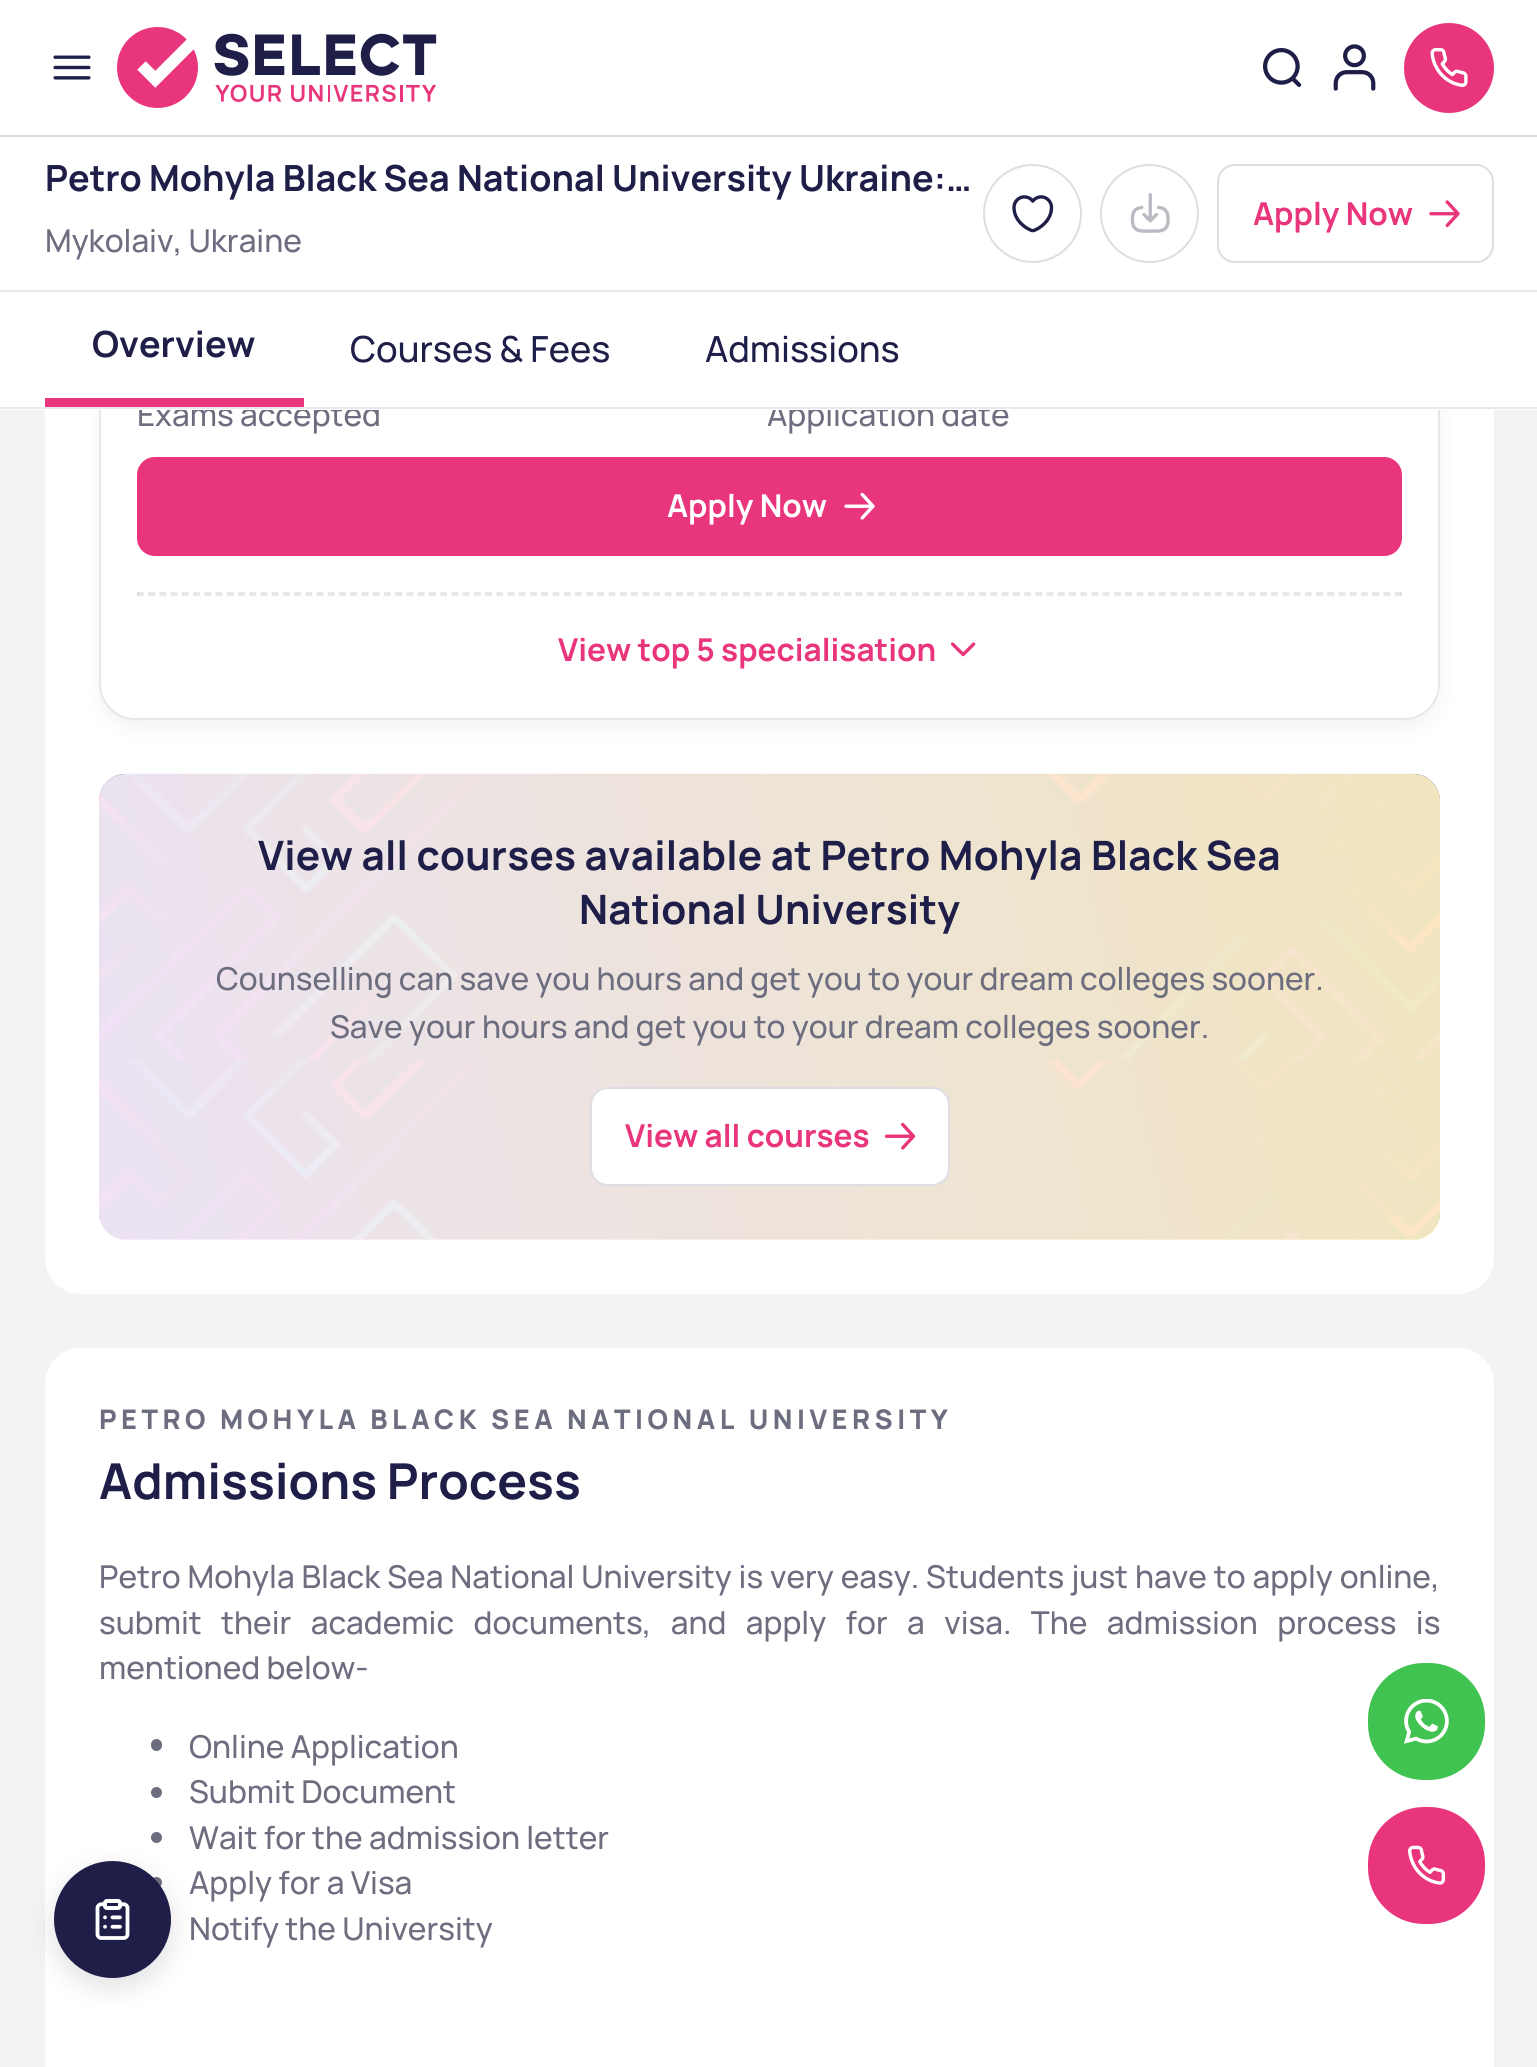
#include <cairo.h>
#include <math.h>
#include <stddef.h>

static cairo_t *ctx;

static void use_color(int r, int g, int b) {
    cairo_set_source_rgb(ctx, r / 255.0, g / 255.0, b / 255.0);
}

static void spaced_text(double x, double y, const char *s, double letter, double word) {
    cairo_move_to(ctx, x, y);
    while (*s) {
        char ch[5] = {0};
        int n = 0;
        do ch[n++] = *s++; while ((*s & 0xC0) == 0x80);
        cairo_show_text(ctx, ch);
        cairo_rel_move_to(ctx, letter + word * (*ch == ' '), 0);
    }
}

static void round_rect(double x, double y, double w, double h, double r) {
    cairo_new_sub_path(ctx);
    cairo_arc(ctx, x + w - r, y + h - r, r, 0, M_PI / 2);
    cairo_arc(ctx, x + r, y + h - r, r, M_PI / 2, M_PI);
    cairo_arc(ctx, x + r, y + r, r, M_PI, 1.5 * M_PI);
    cairo_arc(ctx, x + w - r, y + r, r, 1.5 * M_PI, 2 * M_PI);
    cairo_close_path(ctx);
}

static void shadow(double x, double y, double w, double h, double r, double blur, double alpha) {
    cairo_push_group_with_content(ctx, CAIRO_CONTENT_ALPHA);
    cairo_set_operator(ctx, CAIRO_OPERATOR_SOURCE);
    for (int i = 15; i >= -15 && fmin(w, h) + blur * i / 3 > 0; i -= 2) {
        double e = blur * i / 6;
        cairo_set_source_rgba(ctx, 0, 0, 0, alpha * erfc((i - 1) / 8.5) / 2);
        round_rect(x - e, y - e, w + 2 * e, h + 2 * e, fmax(0, fmin(r + e + blur * .6, fmin(w, h) / 2 + e)));
        cairo_fill(ctx);
    }
    cairo_pattern_t *soft = cairo_pop_group(ctx);
    cairo_mask(ctx, soft);
    cairo_pattern_destroy(soft);
}

static void picture(const char *path, double x, double y, double w, double h) {
    cairo_surface_t *image = cairo_image_surface_create_from_png(path);
    cairo_save(ctx);
    cairo_set_source_surface(ctx, image, x, y);
    cairo_rectangle(ctx, x, y, w, h);
    cairo_fill(ctx);
    cairo_restore(ctx);
    cairo_surface_destroy(image);
}

int main(void) {
    cairo_surface_t *surface = cairo_image_surface_create(CAIRO_FORMAT_RGB24, 1537, 2067);
    ctx = cairo_create(surface);
    cairo_font_options_t *options = cairo_font_options_create();
    cairo_font_options_set_hint_metrics(options, CAIRO_HINT_METRICS_OFF);
    cairo_font_options_set_hint_style(options, CAIRO_HINT_STYLE_NONE);
    cairo_set_font_options(ctx, options);
    cairo_set_miter_limit(ctx, 4);
    cairo_pattern_t *gradient;
    use_color(243, 243, 244);
    cairo_paint(ctx);
    use_color(255, 255, 255);
    round_rect(45, -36, 1449, 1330, 36);
    cairo_fill(ctx);
    use_color(0, 0, 0);
    shadow(99, 14, 1341, 715, 36, 9, 0.05);
    use_color(255, 255, 255);
    round_rect(100, 6, 1339, 713, 35);
    cairo_fill_preserve(ctx);
    use_color(229, 231, 235);
    cairo_stroke(ctx);
    use_color(255, 255, 255);
    cairo_rectangle(ctx, 0, 0, 1537, 135);
    cairo_fill(ctx);
    use_color(221, 221, 228);
    cairo_rectangle(ctx, 0, 135, 1537, 2);
    cairo_fill(ctx);
    picture("img1.png", 53, 55, 38, 25);
    picture("img2.png", 117, 27, 320, 81);
    picture("img3.png", 1263, 48, 39, 39);
    picture("img4.png", 1333, 44, 43, 47);
    use_color(233, 53, 123);
    cairo_arc(ctx, 1449, 68, 44, 0, 2 * M_PI);
    cairo_fill_preserve(ctx);
    cairo_stroke(ctx);
    picture("img5.png", 1430, 48, 38, 39);
    cairo_select_font_face(ctx, "Manrope Medium", CAIRO_FONT_SLANT_NORMAL, CAIRO_FONT_WEIGHT_NORMAL);
    cairo_set_font_size(ctx, 31.5);
    use_color(109, 109, 128);
    cairo_move_to(ctx, 137, 426);
    cairo_show_text(ctx, "Exams accepted");
    cairo_move_to(ctx, 767, 426);
    cairo_show_text(ctx, "Application date");
    use_color(255, 255, 255);
    cairo_rectangle(ctx, 0, 137, 1537, 273);
    cairo_fill(ctx);
    cairo_select_font_face(ctx, "Manrope", CAIRO_FONT_SLANT_NORMAL, CAIRO_FONT_WEIGHT_BOLD);
    cairo_set_font_size(ctx, 36);
    use_color(30, 30, 72);
    cairo_move_to(ctx, 45, 191);
    cairo_show_text(ctx, "Petro Mohyla Black Sea National University Ukraine:…");
    cairo_select_font_face(ctx, "Manrope Medium", CAIRO_FONT_SLANT_NORMAL, CAIRO_FONT_WEIGHT_NORMAL);
    cairo_set_font_size(ctx, 31.5);
    use_color(109, 109, 128);
    cairo_move_to(ctx, 45, 252);
    cairo_show_text(ctx, "Mykolaiv, Ukraine");
    cairo_new_path(ctx);
    cairo_arc(ctx, 1032.5, 213.5, 48.5, 0, 2 * M_PI);
    use_color(221, 221, 228);
    cairo_stroke(ctx);
    picture("img6.png", 1012, 195, 42, 38);
    cairo_arc(ctx, 1149.5, 213.5, 48.5, 0, 2 * M_PI);
    cairo_stroke(ctx);
    picture("img7.png", 1130, 192, 40, 41);
    round_rect(1218, 165, 275, 97, 17);
    cairo_stroke(ctx);
    cairo_select_font_face(ctx, "Manrope", CAIRO_FONT_SLANT_NORMAL, CAIRO_FONT_WEIGHT_BOLD);
    use_color(233, 53, 123);
    cairo_move_to(ctx, 1253, 225);
    cairo_show_text(ctx, "Apply Now");
    picture("img8.png", 1429, 200, 31, 28);
    use_color(229, 231, 235);
    cairo_rectangle(ctx, 0, 290, 1537, 2);
    cairo_fill(ctx);
    use_color(233, 233, 237);
    cairo_rectangle(ctx, 0, 407, 1537, 2);
    cairo_fill(ctx);
    use_color(233, 53, 123);
    cairo_rectangle(ctx, 45, 398, 259, 9);
    cairo_fill(ctx);
    cairo_set_font_size(ctx, 36);
    use_color(30, 30, 72);
    cairo_move_to(ctx, 92, 357);
    cairo_show_text(ctx, "Overview");
    cairo_select_font_face(ctx, "Manrope Medium", CAIRO_FONT_SLANT_NORMAL, CAIRO_FONT_WEIGHT_NORMAL);
    cairo_move_to(ctx, 350, 362);
    cairo_show_text(ctx, "Courses & Fees");
    cairo_move_to(ctx, 705, 362);
    cairo_show_text(ctx, "Admissions");
    use_color(233, 53, 123);
    round_rect(138, 458, 1263, 97, 17);
    cairo_fill_preserve(ctx);
    cairo_stroke(ctx);
    cairo_select_font_face(ctx, "Manrope", CAIRO_FONT_SLANT_NORMAL, CAIRO_FONT_WEIGHT_BOLD);
    cairo_set_font_size(ctx, 31.5);
    use_color(255, 255, 255);
    cairo_move_to(ctx, 667, 517);
    cairo_show_text(ctx, "Apply Now");
    picture("img9.png", 844, 492, 31, 28);
    cairo_new_path(ctx);
    cairo_move_to(ctx, 137, 593);
    cairo_line_to(ctx, 1402, 593);
    use_color(233, 233, 237);
    cairo_set_line_width(ctx, 2.2);
    cairo_set_dash(ctx, (double[]){6.75, 4.48}, 2, 0);
    cairo_stroke(ctx);
    cairo_set_source_rgba(ctx, 0.118, 0.118, 0.282, 0.1);
    cairo_new_path(ctx);
    cairo_move_to(ctx, 1402, 592);
    cairo_line_to(ctx, 1402, 596);
    cairo_line_to(ctx, 1399.5, 594);
    cairo_close_path(ctx);
    cairo_fill(ctx);
    cairo_new_path(ctx);
    cairo_move_to(ctx, 137, 595);
    cairo_line_to(ctx, 1402, 595);
    cairo_stroke(ctx);
    cairo_new_path(ctx);
    cairo_move_to(ctx, 137, 596);
    cairo_line_to(ctx, 137, 592);
    cairo_line_to(ctx, 139.5, 594);
    cairo_close_path(ctx);
    cairo_fill(ctx);
    use_color(233, 53, 123);
    cairo_move_to(ctx, 558, 661);
    cairo_show_text(ctx, "View top 5 specialisation");
    picture("img10.png", 951, 642, 25, 15);
    use_color(255, 246, 233);
    round_rect(99, 774, 1341, 466, 27);
    cairo_fill(ctx);
    picture("img11.png", 99, 773, 1341, 467);
    gradient = cairo_pattern_create_linear(82, 1166, 1457, 848);
    cairo_pattern_add_color_stop_rgba(gradient, 0, 0.976, 0.937, 1, 0.9);
    cairo_pattern_add_color_stop_rgba(gradient, 1, 1, 0.949, 0.765, 0.9);
    cairo_set_source(ctx, gradient);
    cairo_pattern_destroy(gradient);
    round_rect(99, 774, 1341, 466, 27);
    cairo_fill(ctx);
    cairo_set_font_size(ctx, 40.5);
    use_color(30, 30, 72);
    spaced_text(258, 870, "View all courses available at Petro Mohyla Black Sea", 0.23, 0);
    spaced_text(579, 924, "National University", 0.23, 0);
    cairo_select_font_face(ctx, "Manrope Medium", CAIRO_FONT_SLANT_NORMAL, CAIRO_FONT_WEIGHT_NORMAL);
    cairo_set_font_size(ctx, 31.5);
    use_color(109, 109, 128);
    cairo_move_to(ctx, 216, 990);
    cairo_show_text(ctx, "Counselling can save you hours and get you to your dream colleges sooner.");
    cairo_move_to(ctx, 330, 1038);
    cairo_show_text(ctx, "Save your hours and get you to your dream colleges sooner.");
    use_color(255, 255, 255);
    round_rect(590, 1087, 360, 99, 18);
    cairo_fill(ctx);
    round_rect(591, 1088, 358, 97, 17);
    cairo_set_source_rgba(ctx, 0.118, 0.118, 0.282, 0.15);
    cairo_set_line_width(ctx, 2);
    cairo_set_dash(ctx, NULL, 0, 0);
    cairo_stroke(ctx);
    cairo_select_font_face(ctx, "Manrope", CAIRO_FONT_SLANT_NORMAL, CAIRO_FONT_WEIGHT_BOLD);
    use_color(233, 53, 123);
    cairo_move_to(ctx, 625, 1147);
    cairo_show_text(ctx, "View all courses");
    picture("img12.png", 884, 1122, 32, 28);
    use_color(255, 255, 255);
    round_rect(45, 1348, 1449, 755, 36);
    cairo_fill(ctx);
    cairo_select_font_face(ctx, "Manrope ExtraBold", CAIRO_FONT_SLANT_NORMAL, CAIRO_FONT_WEIGHT_NORMAL);
    cairo_set_font_size(ctx, 27);
    use_color(109, 109, 128);
    spaced_text(99, 1429, "PETRO MOHYLA BLACK SEA NATIONAL UNIVERSITY", 4.5, 0);
    cairo_select_font_face(ctx, "Manrope", CAIRO_FONT_SLANT_NORMAL, CAIRO_FONT_WEIGHT_BOLD);
    cairo_set_font_size(ctx, 49.5);
    use_color(30, 30, 72);
    cairo_move_to(ctx, 99, 1499);
    cairo_show_text(ctx, "Admissions Process");
    cairo_select_font_face(ctx, "Manrope Medium", CAIRO_FONT_SLANT_NORMAL, CAIRO_FONT_WEIGHT_NORMAL);
    cairo_set_font_size(ctx, 31.5);
    use_color(109, 109, 128);
    spaced_text(99, 1588, "Petro Mohyla Black Sea National University is very easy. Students just have to apply online,", 0, 0.6);
    spaced_text(99, 1634, "submit their academic documents, and apply for a visa. The admission process is", 0, 13.1);
    cairo_move_to(ctx, 99, 1679);
    cairo_show_text(ctx, "mentioned below-");
    round_rect(151, 1739, 11, 12, 5.5);
    cairo_fill(ctx);
    cairo_move_to(ctx, 189, 1758);
    cairo_show_text(ctx, "Online Application");
    cairo_new_path(ctx);
    cairo_arc(ctx, 156.5, 1792.5, 5.5, 0, 2 * M_PI);
    cairo_fill(ctx);
    cairo_move_to(ctx, 189, 1803);
    cairo_show_text(ctx, "Submit Document");
    cairo_new_path(ctx);
    cairo_arc(ctx, 156.5, 1837.5, 5.5, 0, 2 * M_PI);
    cairo_fill(ctx);
    cairo_move_to(ctx, 189, 1849);
    cairo_show_text(ctx, "Wait for the admission letter");
    cairo_new_path(ctx);
    cairo_arc(ctx, 156.5, 1882.5, 5.5, 0, 2 * M_PI);
    cairo_fill(ctx);
    cairo_move_to(ctx, 189, 1894);
    cairo_show_text(ctx, "Apply for a Visa");
    cairo_move_to(ctx, 189, 1940);
    cairo_show_text(ctx, "Notify the University");
    use_color(0, 0, 0);
    shadow(54, 1870, 117, 117, 58.5, 13.5, 0.12);
    use_color(30, 30, 72);
    cairo_arc(ctx, 112.5, 1919.5, 57.5, 0, 2 * M_PI);
    cairo_fill_preserve(ctx);
    cairo_stroke(ctx);
    picture("img13.png", 95, 1899, 35, 41);
    use_color(64, 195, 81);
    round_rect(1369, 1664, 115, 115, 55);
    cairo_fill_preserve(ctx);
    cairo_stroke(ctx);
    picture("img14.png", 1404, 1699, 45, 45);
    use_color(233, 53, 123);
    round_rect(1369, 1808, 115, 115, 55);
    cairo_fill_preserve(ctx);
    cairo_stroke(ctx);
    picture("img15.png", 1407, 1845, 39, 40);
    cairo_surface_write_to_png(surface, "result.png");
    cairo_font_options_destroy(options);
    cairo_destroy(ctx);
    cairo_surface_destroy(surface);
    return 0;
}
